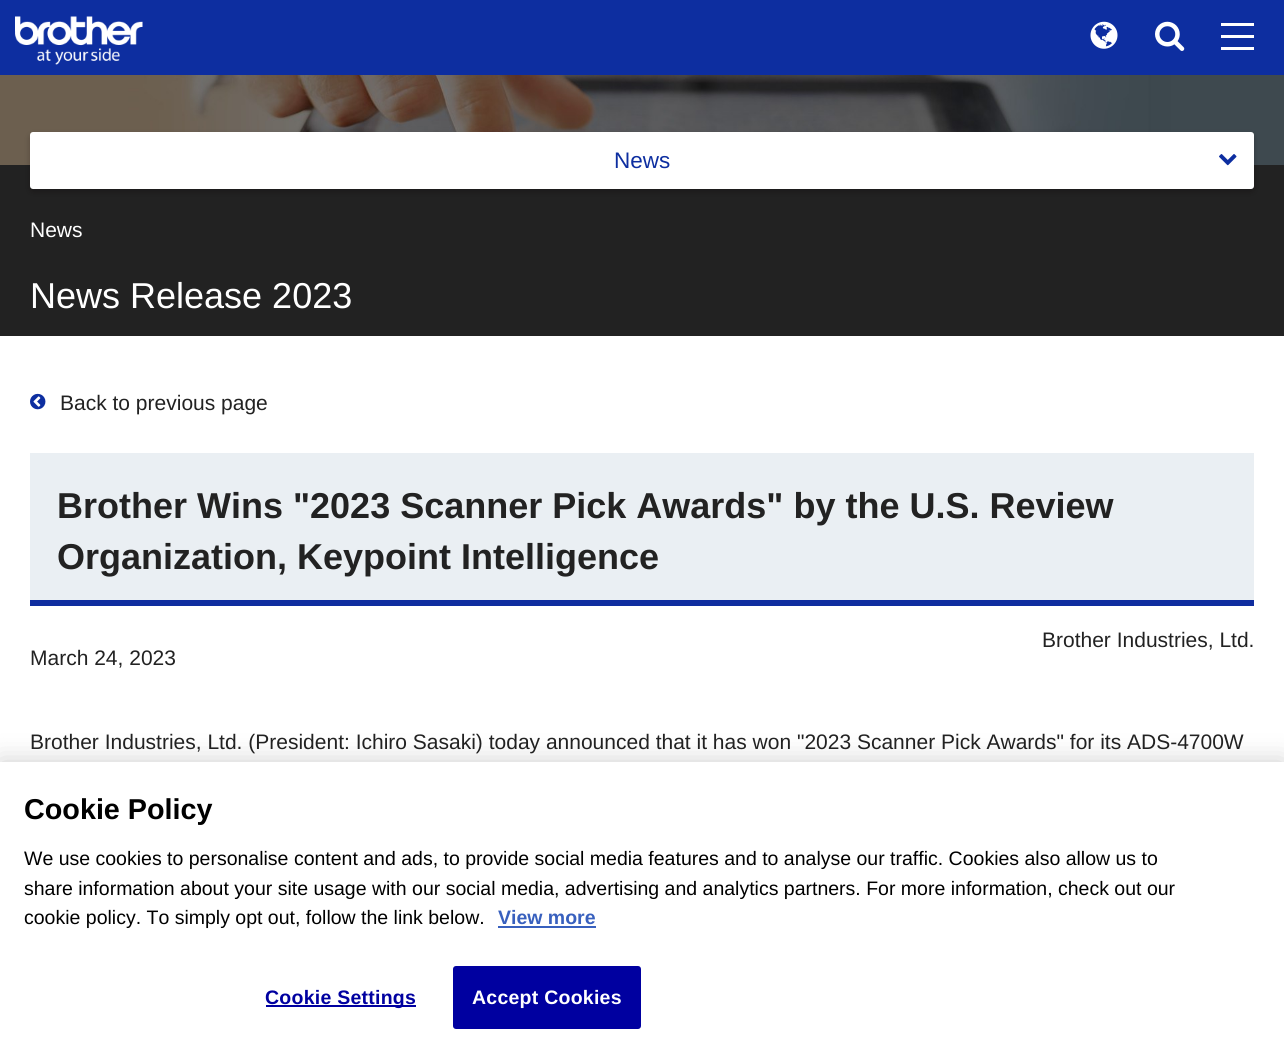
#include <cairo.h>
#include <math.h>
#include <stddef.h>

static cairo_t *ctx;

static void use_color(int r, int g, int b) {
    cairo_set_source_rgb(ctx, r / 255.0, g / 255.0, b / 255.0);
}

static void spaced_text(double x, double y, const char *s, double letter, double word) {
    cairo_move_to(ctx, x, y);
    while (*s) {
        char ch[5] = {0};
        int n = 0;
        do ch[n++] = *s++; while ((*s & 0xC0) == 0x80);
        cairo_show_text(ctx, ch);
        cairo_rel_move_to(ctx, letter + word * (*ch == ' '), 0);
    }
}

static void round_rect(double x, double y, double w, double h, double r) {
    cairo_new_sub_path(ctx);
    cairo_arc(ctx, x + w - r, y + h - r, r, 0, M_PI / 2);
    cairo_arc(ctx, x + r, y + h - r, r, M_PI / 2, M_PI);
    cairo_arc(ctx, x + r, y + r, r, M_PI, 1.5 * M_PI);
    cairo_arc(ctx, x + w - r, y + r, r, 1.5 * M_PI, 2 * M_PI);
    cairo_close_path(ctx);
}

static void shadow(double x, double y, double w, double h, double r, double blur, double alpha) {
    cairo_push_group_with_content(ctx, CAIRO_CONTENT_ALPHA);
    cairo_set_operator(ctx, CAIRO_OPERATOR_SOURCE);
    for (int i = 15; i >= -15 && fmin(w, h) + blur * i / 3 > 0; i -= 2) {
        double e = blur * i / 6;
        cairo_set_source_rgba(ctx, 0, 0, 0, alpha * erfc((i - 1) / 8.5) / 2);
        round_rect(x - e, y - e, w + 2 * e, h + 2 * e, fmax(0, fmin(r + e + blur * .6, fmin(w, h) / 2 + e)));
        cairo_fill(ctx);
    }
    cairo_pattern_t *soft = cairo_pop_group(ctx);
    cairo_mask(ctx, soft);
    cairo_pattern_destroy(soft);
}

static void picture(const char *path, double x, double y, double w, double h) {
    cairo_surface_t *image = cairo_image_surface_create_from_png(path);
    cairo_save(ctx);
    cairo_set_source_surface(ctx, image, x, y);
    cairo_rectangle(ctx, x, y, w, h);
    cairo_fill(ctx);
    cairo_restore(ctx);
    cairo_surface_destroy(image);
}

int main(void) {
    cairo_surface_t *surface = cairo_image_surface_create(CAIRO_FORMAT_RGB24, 1284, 1052);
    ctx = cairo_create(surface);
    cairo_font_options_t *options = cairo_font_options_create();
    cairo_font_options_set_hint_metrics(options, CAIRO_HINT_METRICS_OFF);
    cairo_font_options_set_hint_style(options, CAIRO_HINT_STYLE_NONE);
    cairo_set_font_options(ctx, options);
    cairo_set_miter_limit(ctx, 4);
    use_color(255, 255, 255);
    cairo_paint(ctx);
    use_color(13, 46, 160);
    cairo_rectangle(ctx, 0, 0, 1284, 75);
    cairo_fill(ctx);
    picture("img1.png", 15, 16, 128, 49);
    picture("img2.png", 1090, 21, 28, 28);
    picture("img3.png", 1155, 21, 30, 30);
    use_color(255, 255, 255);
    cairo_rectangle(ctx, 1221, 23, 33, 3);
    cairo_fill(ctx);
    cairo_rectangle(ctx, 1221, 35, 33, 3);
    cairo_fill(ctx);
    cairo_rectangle(ctx, 1221, 47, 33, 3);
    cairo_fill(ctx);
    picture("img4.png", 0, 75, 1284, 90);
    use_color(34, 34, 34);
    cairo_rectangle(ctx, 0, 165, 1284, 171);
    cairo_fill(ctx);
    use_color(8, 1, 3);
    shadow(30, 135, 1224, 57, 3, 3, 0.25);
    use_color(255, 255, 255);
    round_rect(30, 132, 1224, 57, 3);
    cairo_fill(ctx);
    cairo_select_font_face(ctx, "Liberation Sans", CAIRO_FONT_SLANT_NORMAL, CAIRO_FONT_WEIGHT_NORMAL);
    cairo_set_font_size(ctx, 22.5);
    use_color(13, 46, 160);
    cairo_move_to(ctx, 614, 168);
    cairo_show_text(ctx, "News");
    picture("img5.png", 1219, 154, 18, 12);
    cairo_set_font_size(ctx, 21);
    use_color(255, 255, 255);
    cairo_move_to(ctx, 30, 237);
    cairo_show_text(ctx, "News");
    cairo_set_font_size(ctx, 36);
    cairo_move_to(ctx, 30, 308);
    cairo_show_text(ctx, "News Release 2023");
    picture("img6.png", 30, 393, 16, 17);
    cairo_set_font_size(ctx, 21);
    use_color(34, 34, 34);
    cairo_move_to(ctx, 60, 410);
    cairo_show_text(ctx, "Back to previous page");
    use_color(234, 239, 243);
    cairo_rectangle(ctx, 30, 453, 1224, 147);
    cairo_fill(ctx);
    use_color(15, 45, 159);
    cairo_rectangle(ctx, 30, 600, 1224, 6);
    cairo_fill(ctx);
    cairo_select_font_face(ctx, "Liberation Sans", CAIRO_FONT_SLANT_NORMAL, CAIRO_FONT_WEIGHT_BOLD);
    cairo_set_font_size(ctx, 36);
    use_color(34, 34, 34);
    cairo_move_to(ctx, 57, 518);
    cairo_show_text(ctx, "Brother Wins \"2023 Scanner Pick Awards\" by the U.S. Review");
    cairo_move_to(ctx, 57, 569);
    cairo_show_text(ctx, "Organization, Keypoint Intelligence");
    cairo_select_font_face(ctx, "Liberation Sans", CAIRO_FONT_SLANT_NORMAL, CAIRO_FONT_WEIGHT_NORMAL);
    cairo_set_font_size(ctx, 21);
    cairo_move_to(ctx, 1042, 647);
    cairo_show_text(ctx, "Brother Industries, Ltd.");
    cairo_move_to(ctx, 30, 665);
    cairo_show_text(ctx, "March 24, 2023");
    cairo_move_to(ctx, 30, 749);
    cairo_show_text(ctx, "Brother Industries, Ltd. (President: Ichiro Sasaki) today announced that it has won \"2023 Scanner Pick Awards\" for its ADS-4700W");
    use_color(0, 0, 0);
    shadow(0, 762, 1284, 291, 0, 13.5, 0.2);
    use_color(255, 255, 255);
    cairo_rectangle(ctx, 0, 762, 1284, 290);
    cairo_fill(ctx);
    cairo_select_font_face(ctx, "Liberation Sans", CAIRO_FONT_SLANT_NORMAL, CAIRO_FONT_WEIGHT_BOLD);
    cairo_set_font_size(ctx, 28.75);
    use_color(0, 0, 0);
    cairo_move_to(ctx, 24, 819);
    cairo_show_text(ctx, "Cookie Policy");
    cairo_select_font_face(ctx, "Liberation Sans", CAIRO_FONT_SLANT_NORMAL, CAIRO_FONT_WEIGHT_NORMAL);
    cairo_set_font_size(ctx, 19.5);
    cairo_move_to(ctx, 24, 865);
    cairo_show_text(ctx, "We use cookies to personalise content and ads, to provide social media features and to analyse our traffic. Cookies also allow us to");
    cairo_move_to(ctx, 24, 895);
    cairo_show_text(ctx, "share information about your site usage with our social media, advertising and analytics partners. For more information, check out our");
    cairo_move_to(ctx, 24, 924);
    cairo_show_text(ctx, "cookie policy. To simply opt out, follow the link below.");
    cairo_select_font_face(ctx, "Liberation Sans", CAIRO_FONT_SLANT_NORMAL, CAIRO_FONT_WEIGHT_BOLD);
    use_color(56, 96, 190);
    cairo_move_to(ctx, 498, 924);
    cairo_show_text(ctx, "View more");
    cairo_rectangle(ctx, 498, 926, 98, 2);
    cairo_fill(ctx);
    use_color(0, 0, 160);
    cairo_rectangle(ctx, 266, 1005, 150, 2);
    cairo_fill(ctx);
    spaced_text(265, 1004, "Cookie Settings", 0.25, 0);
    round_rect(454, 967, 186, 61, 2);
    cairo_fill_preserve(ctx);
    cairo_stroke(ctx);
    use_color(255, 255, 255);
    spaced_text(472, 1004, "Accept Cookies", 0.25, 0);
    cairo_surface_write_to_png(surface, "result.png");
    cairo_font_options_destroy(options);
    cairo_destroy(ctx);
    cairo_surface_destroy(surface);
    return 0;
}
